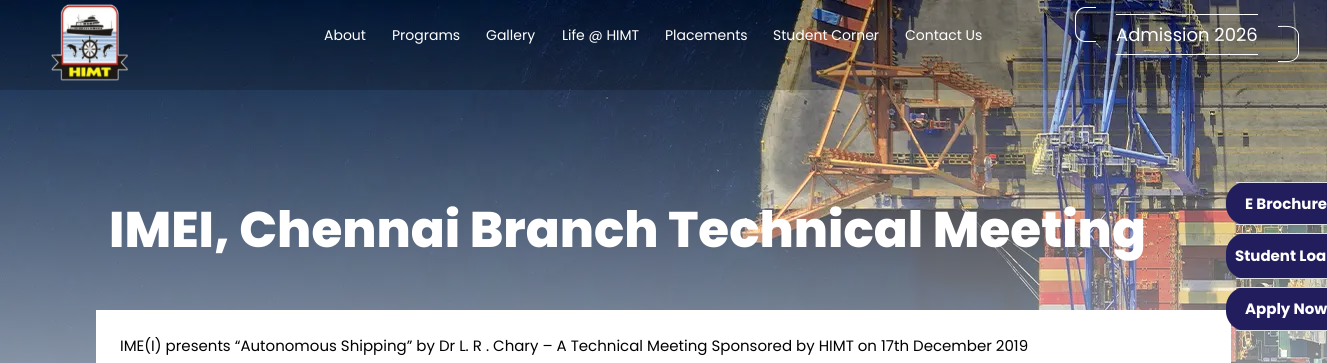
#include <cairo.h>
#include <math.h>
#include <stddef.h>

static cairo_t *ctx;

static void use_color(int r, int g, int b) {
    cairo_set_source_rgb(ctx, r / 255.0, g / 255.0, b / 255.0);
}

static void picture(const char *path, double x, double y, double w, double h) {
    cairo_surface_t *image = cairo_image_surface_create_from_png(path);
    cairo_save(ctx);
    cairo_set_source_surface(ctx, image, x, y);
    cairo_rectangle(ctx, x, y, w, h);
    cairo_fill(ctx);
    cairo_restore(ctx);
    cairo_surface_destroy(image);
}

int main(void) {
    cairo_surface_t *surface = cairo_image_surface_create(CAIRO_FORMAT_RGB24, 1327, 363);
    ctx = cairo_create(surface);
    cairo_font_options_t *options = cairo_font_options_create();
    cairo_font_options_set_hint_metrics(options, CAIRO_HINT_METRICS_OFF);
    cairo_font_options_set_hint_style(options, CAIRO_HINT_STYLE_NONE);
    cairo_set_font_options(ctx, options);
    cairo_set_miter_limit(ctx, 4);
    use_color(255, 255, 255);
    cairo_paint(ctx);
    picture("img1.png", 0, 0, 1327, 363);
    cairo_set_source_rgba(ctx, 0, 0, 0, 0.2);
    cairo_rectangle(ctx, 0, 0, 1327, 90);
    cairo_fill(ctx);
    picture("img2.png", 51, 4, 77, 77);
    cairo_select_font_face(ctx, "Poppins", CAIRO_FONT_SLANT_NORMAL, CAIRO_FONT_WEIGHT_NORMAL);
    cairo_set_font_size(ctx, 14);
    use_color(255, 255, 255);
    cairo_move_to(ctx, 324, 40);
    cairo_show_text(ctx, "About");
    cairo_move_to(ctx, 392, 40);
    cairo_show_text(ctx, "Programs");
    cairo_move_to(ctx, 486, 40);
    cairo_show_text(ctx, "Gallery");
    cairo_move_to(ctx, 562, 40);
    cairo_show_text(ctx, "Life @ HIMT");
    cairo_move_to(ctx, 665, 40);
    cairo_show_text(ctx, "Placements");
    cairo_move_to(ctx, 773, 40);
    cairo_show_text(ctx, "Student Corner");
    cairo_move_to(ctx, 905, 40);
    cairo_show_text(ctx, "Contact Us");
    cairo_set_font_size(ctx, 18);
    cairo_move_to(ctx, 1116, 41);
    cairo_show_text(ctx, "Admission 2026");
    cairo_set_fill_rule(ctx, CAIRO_FILL_RULE_EVEN_ODD);
    cairo_new_path(ctx);
    cairo_move_to(ctx, 1085.5, 7);
    cairo_line_to(ctx, 1096, 7);
    cairo_line_to(ctx, 1096, 42);
    cairo_line_to(ctx, 1085.5, 42);
    cairo_curve_to(ctx, 1079.5, 42, 1075, 37.5, 1075, 31.5);
    cairo_line_to(ctx, 1075, 17.5);
    cairo_curve_to(ctx, 1075, 11.5, 1079.5, 7, 1085.5, 7);
    cairo_close_path(ctx);
    cairo_move_to(ctx, 1085.5, 8);
    cairo_line_to(ctx, 1096, 8);
    cairo_line_to(ctx, 1096, 41);
    cairo_line_to(ctx, 1085.5, 41);
    cairo_curve_to(ctx, 1080.5, 41, 1076, 36.5, 1076, 31.5);
    cairo_line_to(ctx, 1076, 17.5);
    cairo_curve_to(ctx, 1076, 12.5, 1080.5, 8, 1085.5, 8);
    cairo_close_path(ctx);
    cairo_fill(ctx);
    cairo_rectangle(ctx, 1116, 14, 142, 1);
    cairo_fill(ctx);
    cairo_rectangle(ctx, 1116, 54, 142, 1);
    cairo_fill(ctx);
    cairo_new_path(ctx);
    cairo_move_to(ctx, 1278, 26);
    cairo_curve_to(ctx, 1285.5, 26, 1296.5, 24, 1299, 34.5);
    cairo_line_to(ctx, 1299, 44);
    cairo_line_to(ctx, 1299, 53.5);
    cairo_curve_to(ctx, 1296.5, 64, 1285.5, 62, 1278, 62);
    cairo_close_path(ctx);
    cairo_move_to(ctx, 1278, 27);
    cairo_curve_to(ctx, 1285, 27, 1296, 25, 1298, 34.5);
    cairo_line_to(ctx, 1298, 53.5);
    cairo_curve_to(ctx, 1296, 63, 1285, 61, 1278, 61);
    cairo_close_path(ctx);
    cairo_fill(ctx);
    cairo_select_font_face(ctx, "Poppins ExtraBold", CAIRO_FONT_SLANT_NORMAL, CAIRO_FONT_WEIGHT_NORMAL);
    cairo_set_font_size(ctx, 50);
    cairo_move_to(ctx, 109, 247);
    cairo_show_text(ctx, "IMEI, Chennai Branch Technical Meeting");
    use_color(34, 29, 92);
    cairo_new_path(ctx);
    cairo_move_to(ctx, 1246, 182);
    cairo_line_to(ctx, 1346, 182);
    cairo_line_to(ctx, 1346, 225);
    cairo_line_to(ctx, 1246, 225);
    cairo_curve_to(ctx, 1235, 225, 1226, 216, 1226, 205);
    cairo_line_to(ctx, 1226, 202);
    cairo_curve_to(ctx, 1226, 191, 1235, 182, 1246, 182);
    cairo_close_path(ctx);
    cairo_fill(ctx);
    use_color(222, 226, 230);
    cairo_rectangle(ctx, 1236, 182, 91, 1);
    cairo_fill(ctx);
    cairo_rectangle(ctx, 1236, 224, 91, 1);
    cairo_fill(ctx);
    cairo_select_font_face(ctx, "Poppins", CAIRO_FONT_SLANT_NORMAL, CAIRO_FONT_WEIGHT_BOLD);
    cairo_set_font_size(ctx, 15);
    use_color(255, 255, 255);
    cairo_move_to(ctx, 1245, 209);
    cairo_show_text(ctx, "E Brochure");
    use_color(34, 29, 92);
    cairo_new_path(ctx);
    cairo_move_to(ctx, 1246, 233);
    cairo_line_to(ctx, 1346, 233);
    cairo_line_to(ctx, 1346, 279);
    cairo_line_to(ctx, 1246, 279);
    cairo_curve_to(ctx, 1235, 279, 1226, 270, 1226, 259);
    cairo_line_to(ctx, 1226, 253);
    cairo_curve_to(ctx, 1226, 242, 1235, 233, 1246, 233);
    cairo_close_path(ctx);
    cairo_fill(ctx);
    use_color(222, 226, 230);
    cairo_rectangle(ctx, 1236, 233, 91, 1);
    cairo_fill(ctx);
    cairo_rectangle(ctx, 1236, 278, 91, 1);
    cairo_fill(ctx);
    use_color(255, 255, 255);
    cairo_move_to(ctx, 1235, 261);
    cairo_show_text(ctx, "Student Loa");
    cairo_rectangle(ctx, 96, 310, 1135, 53);
    cairo_fill(ctx);
    use_color(34, 29, 92);
    cairo_new_path(ctx);
    cairo_move_to(ctx, 1246, 287);
    cairo_line_to(ctx, 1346, 287);
    cairo_line_to(ctx, 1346, 331);
    cairo_line_to(ctx, 1246, 331);
    cairo_curve_to(ctx, 1235, 331, 1226, 322, 1226, 311);
    cairo_line_to(ctx, 1226, 307);
    cairo_curve_to(ctx, 1226, 296, 1235, 287, 1246, 287);
    cairo_close_path(ctx);
    cairo_fill(ctx);
    use_color(222, 226, 230);
    cairo_rectangle(ctx, 1236, 287, 91, 1);
    cairo_fill(ctx);
    cairo_rectangle(ctx, 1236, 330, 91, 1);
    cairo_fill(ctx);
    use_color(255, 255, 255);
    cairo_move_to(ctx, 1245, 314);
    cairo_show_text(ctx, "Apply Now");
    cairo_select_font_face(ctx, "Poppins", CAIRO_FONT_SLANT_NORMAL, CAIRO_FONT_WEIGHT_NORMAL);
    use_color(0, 0, 0);
    cairo_move_to(ctx, 120, 351);
    cairo_show_text(ctx, "IME(I) presents “Autonomous Shipping” by Dr L. R . Chary – A Technical Meeting Sponsored by HIMT on 17th December 2019");
    cairo_surface_write_to_png(surface, "result.png");
    cairo_font_options_destroy(options);
    cairo_destroy(ctx);
    cairo_surface_destroy(surface);
    return 0;
}
